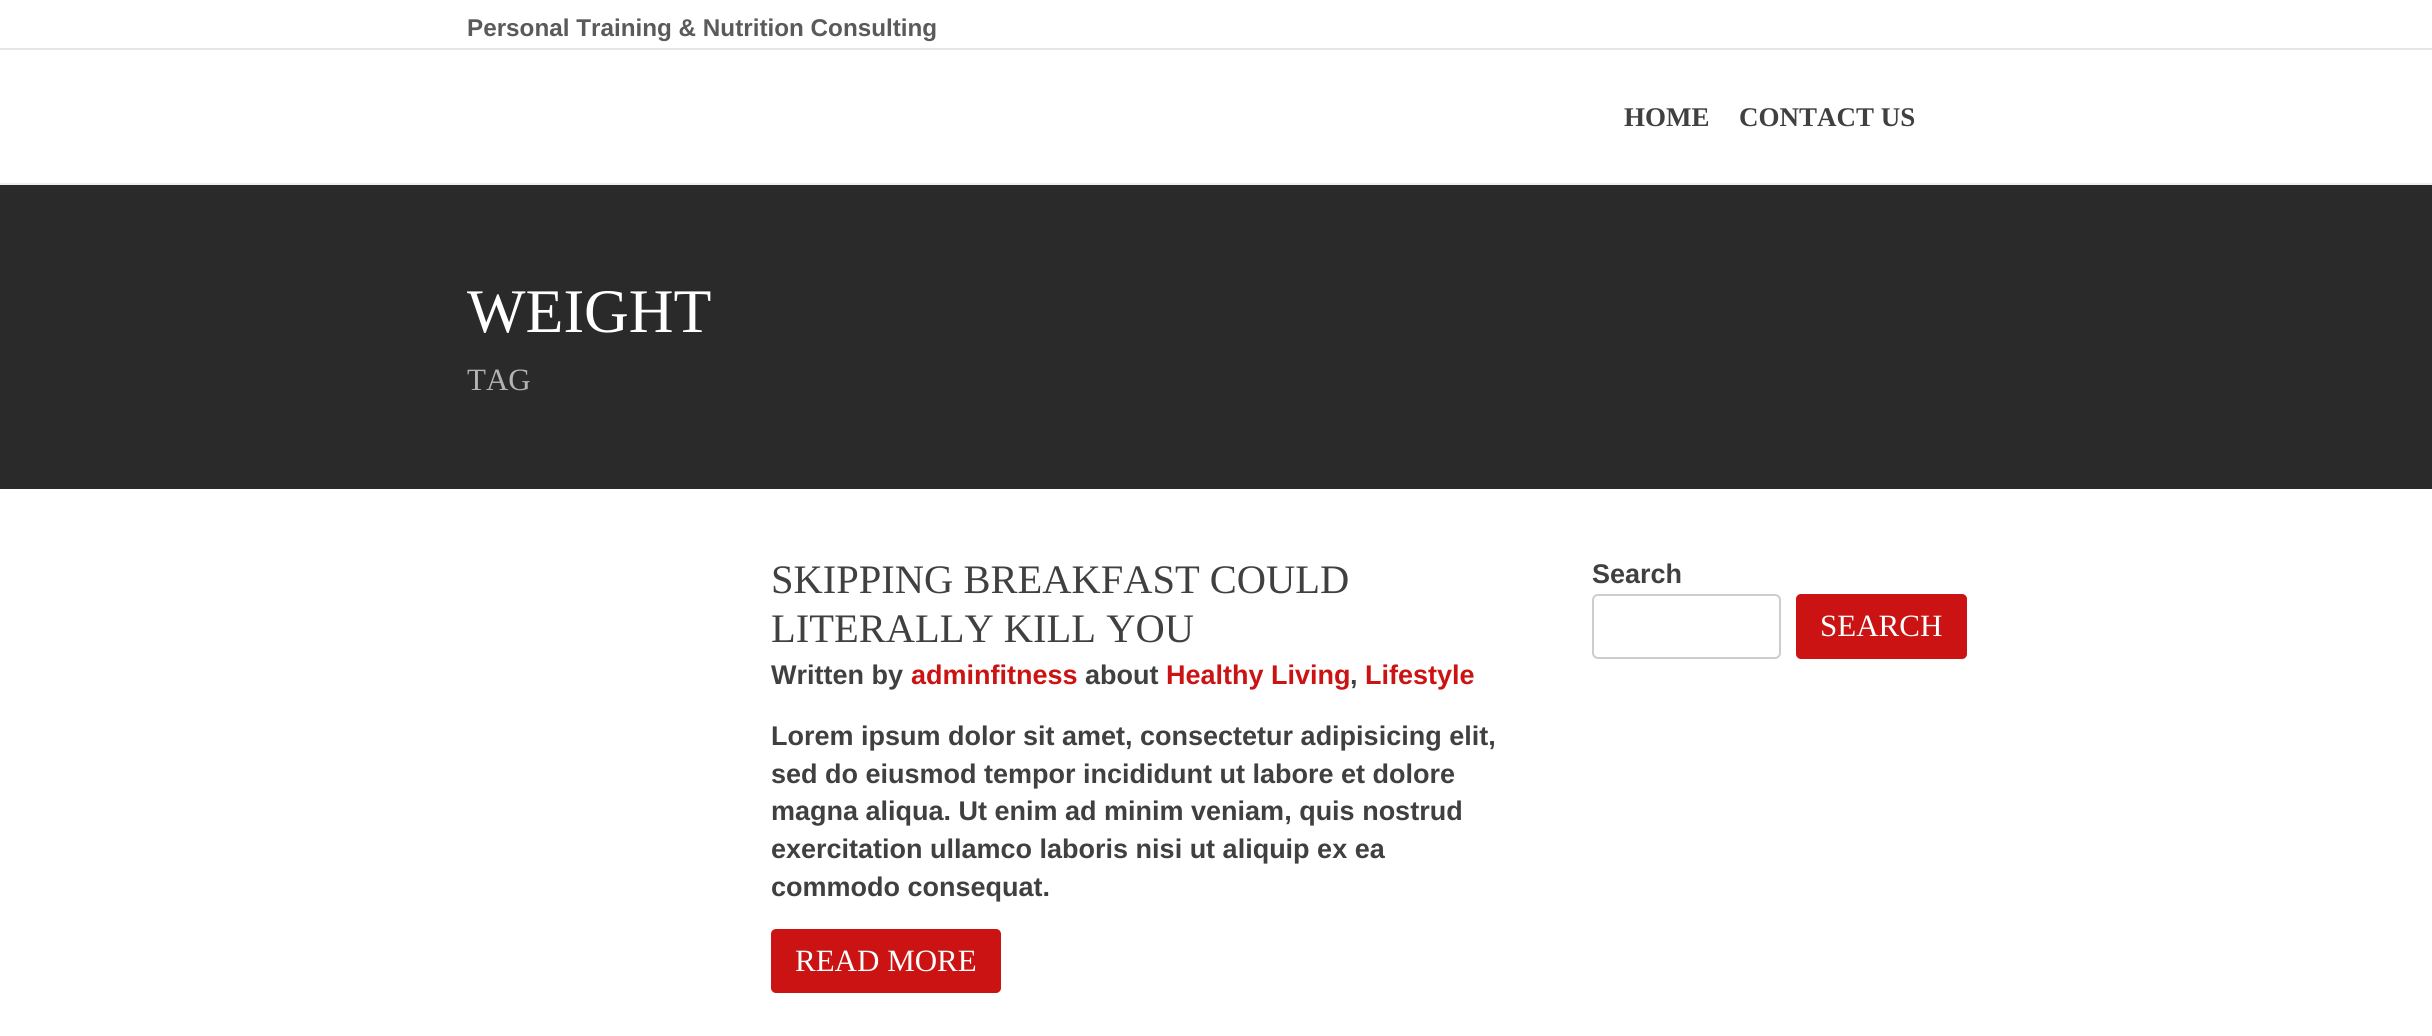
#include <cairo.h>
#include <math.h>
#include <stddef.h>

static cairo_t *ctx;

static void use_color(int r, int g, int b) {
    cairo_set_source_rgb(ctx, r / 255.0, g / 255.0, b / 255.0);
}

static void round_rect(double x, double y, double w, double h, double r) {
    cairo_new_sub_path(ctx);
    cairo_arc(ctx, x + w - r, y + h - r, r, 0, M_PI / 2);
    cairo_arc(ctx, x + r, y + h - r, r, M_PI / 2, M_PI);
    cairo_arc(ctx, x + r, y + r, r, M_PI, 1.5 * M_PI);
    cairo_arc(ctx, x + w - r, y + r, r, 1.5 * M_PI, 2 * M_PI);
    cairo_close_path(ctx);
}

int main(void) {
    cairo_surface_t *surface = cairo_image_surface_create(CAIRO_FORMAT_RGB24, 2432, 1036);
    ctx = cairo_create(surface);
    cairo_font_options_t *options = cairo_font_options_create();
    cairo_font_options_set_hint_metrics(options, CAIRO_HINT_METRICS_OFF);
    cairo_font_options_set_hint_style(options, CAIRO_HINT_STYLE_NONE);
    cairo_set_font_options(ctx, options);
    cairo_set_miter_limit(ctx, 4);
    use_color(255, 255, 255);
    cairo_paint(ctx);
    use_color(230, 230, 230);
    cairo_rectangle(ctx, 0, 48, 2432, 2);
    cairo_fill(ctx);
    cairo_select_font_face(ctx, "Liberation Sans", CAIRO_FONT_SLANT_NORMAL, CAIRO_FONT_WEIGHT_BOLD);
    cairo_set_font_size(ctx, 24.25);
    use_color(90, 90, 90);
    cairo_move_to(ctx, 467, 36);
    cairo_show_text(ctx, "Personal Training & Nutrition Consulting");
    use_color(238, 238, 238);
    cairo_rectangle(ctx, 0, 183, 2432, 2);
    cairo_fill(ctx);
    cairo_select_font_face(ctx, "Liberation Serif", CAIRO_FONT_SLANT_NORMAL, CAIRO_FONT_WEIGHT_BOLD);
    cairo_set_font_size(ctx, 27);
    use_color(64, 64, 64);
    cairo_move_to(ctx, 1624, 126);
    cairo_show_text(ctx, "HOME");
    cairo_move_to(ctx, 1739, 126);
    cairo_show_text(ctx, "CONTACT US");
    use_color(42, 42, 42);
    cairo_rectangle(ctx, 0, 185, 2432, 304);
    cairo_fill(ctx);
    cairo_select_font_face(ctx, "Liberation Serif", CAIRO_FONT_SLANT_NORMAL, CAIRO_FONT_WEIGHT_NORMAL);
    cairo_set_font_size(ctx, 62);
    use_color(255, 255, 255);
    cairo_move_to(ctx, 467, 332);
    cairo_show_text(ctx, "WEIGHT");
    cairo_set_font_size(ctx, 31);
    use_color(179, 179, 179);
    cairo_move_to(ctx, 467, 390);
    cairo_show_text(ctx, "TAG");
    cairo_set_font_size(ctx, 40.5);
    use_color(64, 64, 64);
    cairo_move_to(ctx, 771, 593);
    cairo_show_text(ctx, "SKIPPING BREAKFAST COULD");
    cairo_move_to(ctx, 771, 642);
    cairo_show_text(ctx, "LITERALLY KILL YOU");
    cairo_select_font_face(ctx, "Liberation Sans", CAIRO_FONT_SLANT_NORMAL, CAIRO_FONT_WEIGHT_BOLD);
    cairo_set_font_size(ctx, 27);
    cairo_move_to(ctx, 771, 684);
    cairo_show_text(ctx, "Written by");
    use_color(203, 19, 19);
    cairo_move_to(ctx, 911, 684);
    cairo_show_text(ctx, "adminfitness");
    use_color(64, 64, 64);
    cairo_move_to(ctx, 1085, 684);
    cairo_show_text(ctx, "about");
    use_color(203, 19, 19);
    cairo_move_to(ctx, 1166, 684);
    cairo_show_text(ctx, "Healthy Living");
    use_color(64, 64, 64);
    cairo_move_to(ctx, 1350, 684);
    cairo_show_text(ctx, ",");
    use_color(203, 19, 19);
    cairo_move_to(ctx, 1365, 684);
    cairo_show_text(ctx, "Lifestyle");
    use_color(64, 64, 64);
    cairo_move_to(ctx, 771, 745);
    cairo_show_text(ctx, "Lorem ipsum dolor sit amet, consectetur adipisicing elit,");
    cairo_move_to(ctx, 771, 783);
    cairo_show_text(ctx, "sed do eiusmod tempor incididunt ut labore et dolore");
    cairo_move_to(ctx, 771, 820);
    cairo_show_text(ctx, "magna aliqua. Ut enim ad minim veniam, quis nostrud");
    cairo_move_to(ctx, 771, 858);
    cairo_show_text(ctx, "exercitation ullamco laboris nisi ut aliquip ex ea");
    cairo_move_to(ctx, 771, 896);
    cairo_show_text(ctx, "commodo consequat.");
    use_color(203, 19, 19);
    round_rect(771, 929, 230, 64, 5);
    cairo_fill(ctx);
    cairo_select_font_face(ctx, "Liberation Serif", CAIRO_FONT_SLANT_NORMAL, CAIRO_FONT_WEIGHT_NORMAL);
    cairo_set_font_size(ctx, 31);
    use_color(255, 255, 255);
    cairo_move_to(ctx, 795, 971);
    cairo_show_text(ctx, "READ MORE");
    cairo_select_font_face(ctx, "Liberation Sans", CAIRO_FONT_SLANT_NORMAL, CAIRO_FONT_WEIGHT_BOLD);
    cairo_set_font_size(ctx, 27);
    use_color(64, 64, 64);
    cairo_move_to(ctx, 1592, 583);
    cairo_show_text(ctx, "Search");
    round_rect(1593, 595, 187, 63, 5);
    use_color(205, 205, 205);
    cairo_stroke(ctx);
    use_color(203, 19, 19);
    round_rect(1796, 594, 171, 65, 5);
    cairo_fill(ctx);
    cairo_select_font_face(ctx, "Liberation Serif", CAIRO_FONT_SLANT_NORMAL, CAIRO_FONT_WEIGHT_NORMAL);
    cairo_set_font_size(ctx, 31);
    use_color(255, 255, 255);
    cairo_move_to(ctx, 1820, 636);
    cairo_show_text(ctx, "SEARCH");
    cairo_surface_write_to_png(surface, "result.png");
    cairo_font_options_destroy(options);
    cairo_destroy(ctx);
    cairo_surface_destroy(surface);
    return 0;
}
